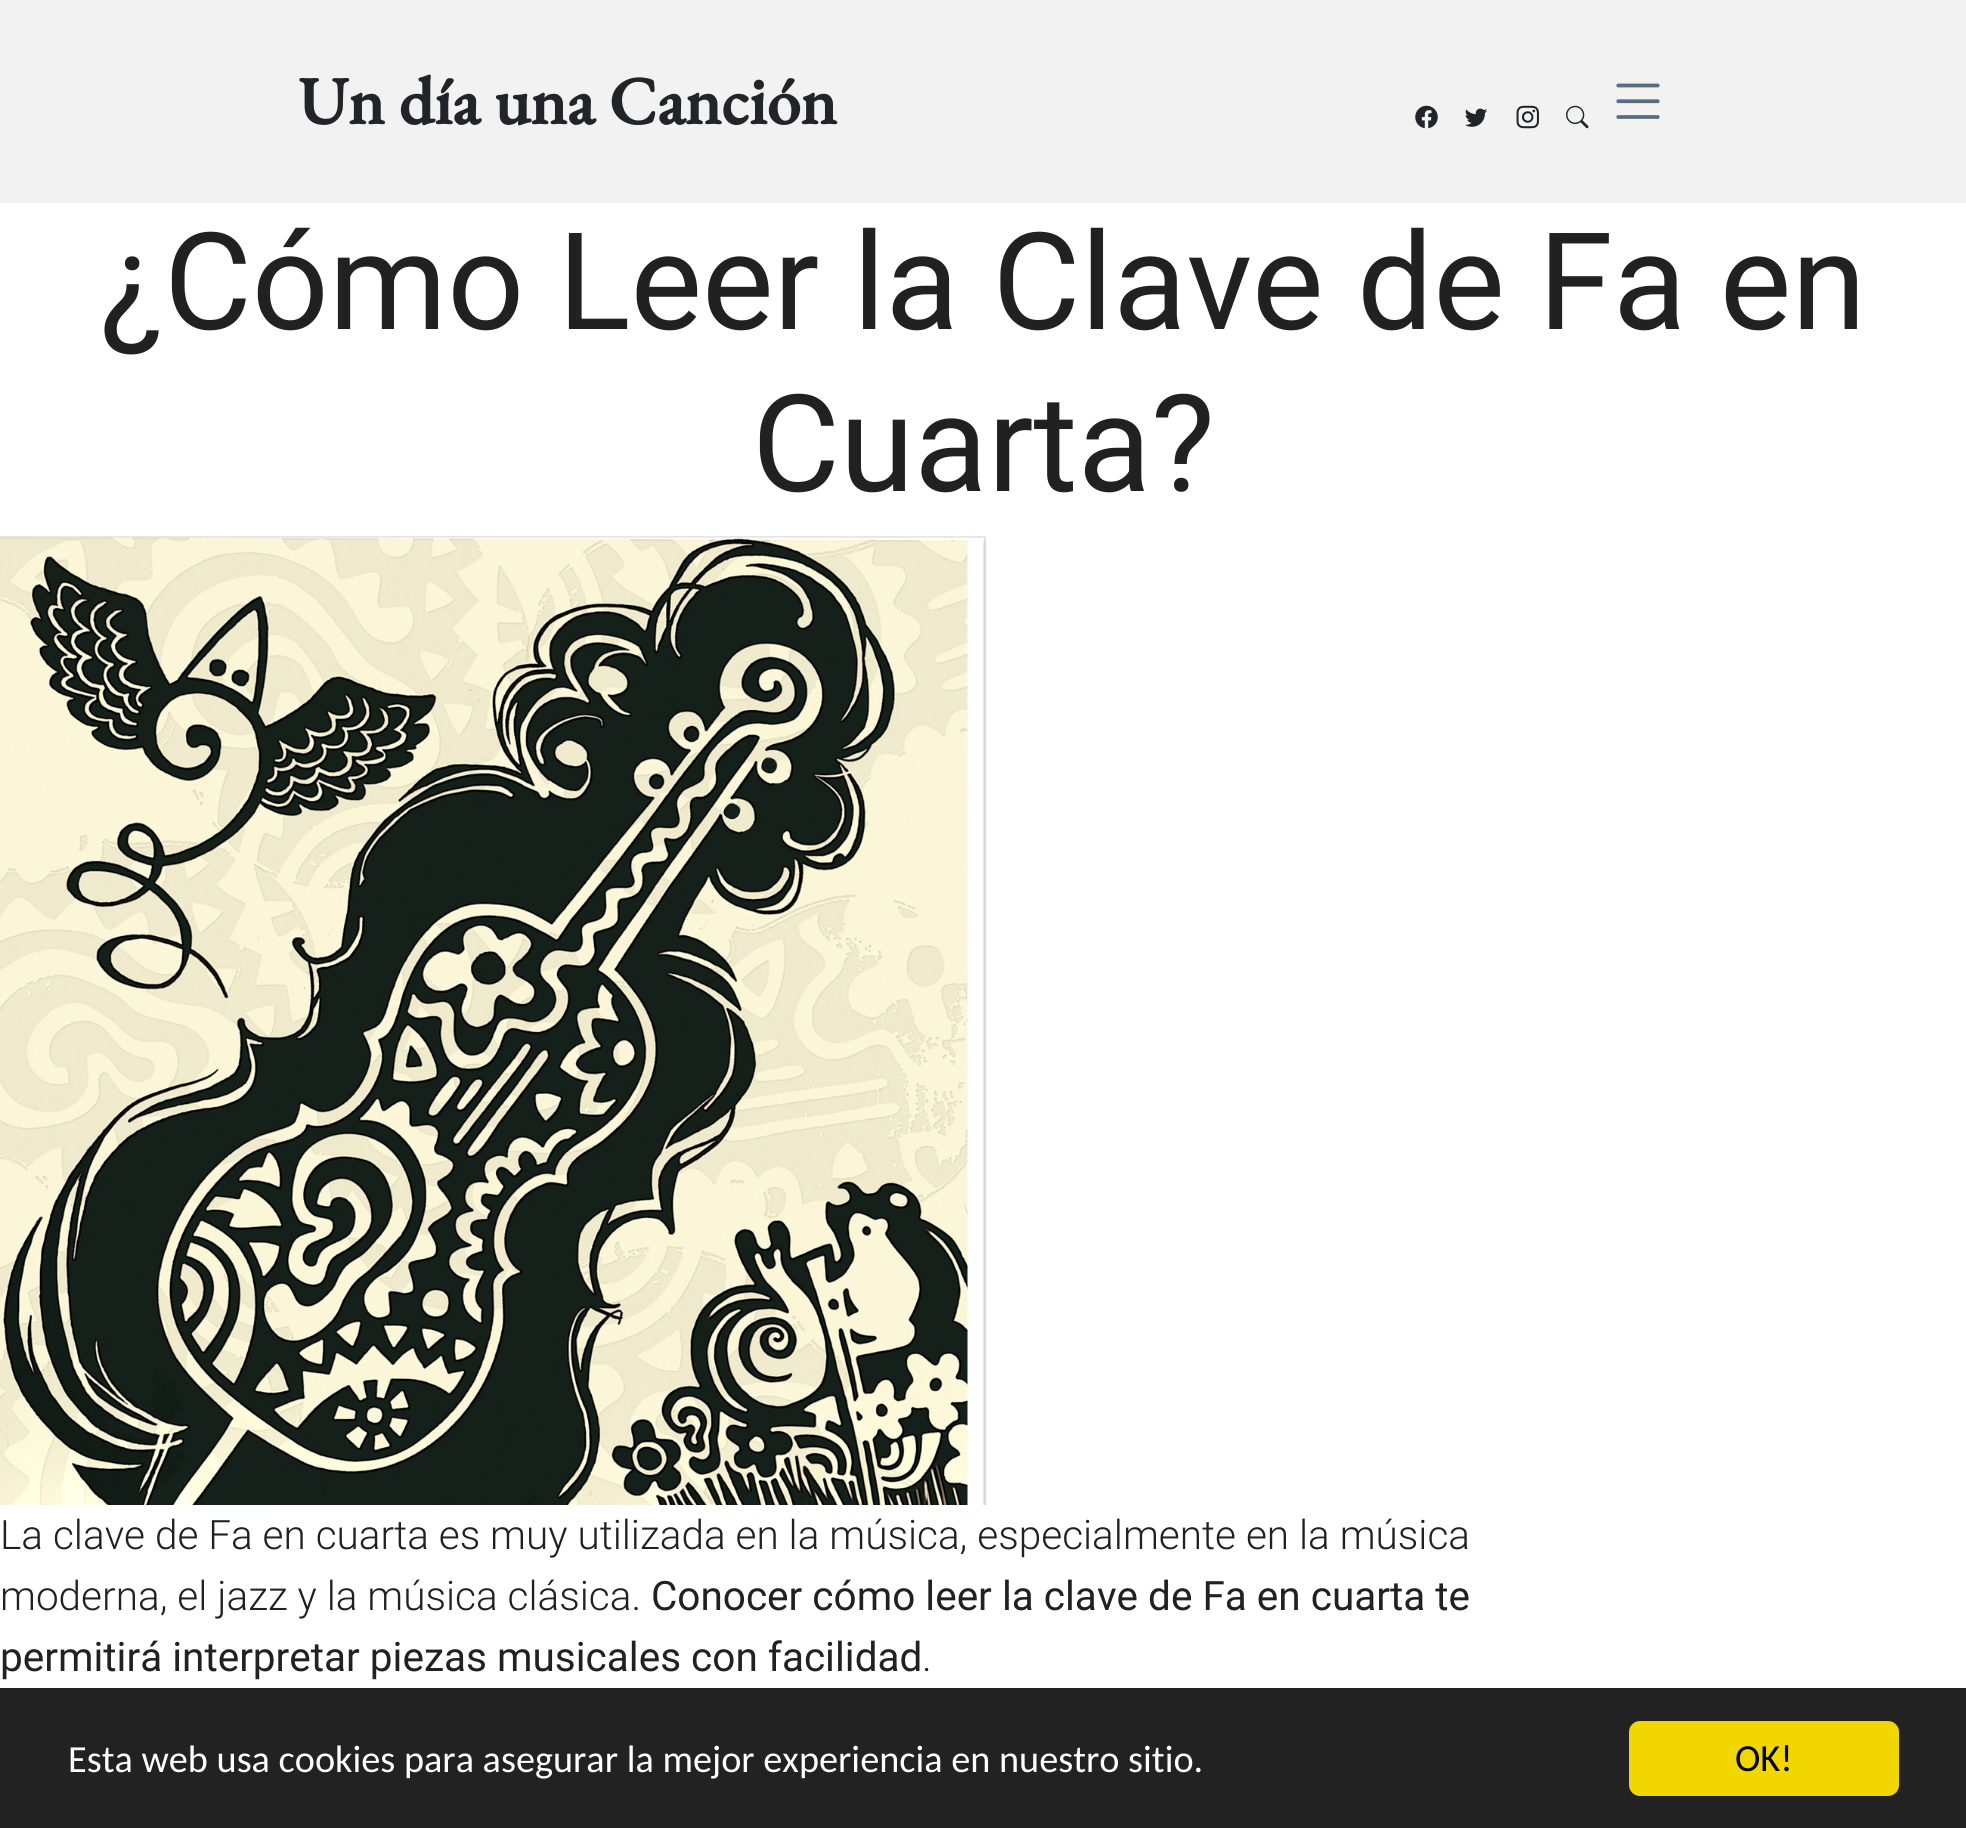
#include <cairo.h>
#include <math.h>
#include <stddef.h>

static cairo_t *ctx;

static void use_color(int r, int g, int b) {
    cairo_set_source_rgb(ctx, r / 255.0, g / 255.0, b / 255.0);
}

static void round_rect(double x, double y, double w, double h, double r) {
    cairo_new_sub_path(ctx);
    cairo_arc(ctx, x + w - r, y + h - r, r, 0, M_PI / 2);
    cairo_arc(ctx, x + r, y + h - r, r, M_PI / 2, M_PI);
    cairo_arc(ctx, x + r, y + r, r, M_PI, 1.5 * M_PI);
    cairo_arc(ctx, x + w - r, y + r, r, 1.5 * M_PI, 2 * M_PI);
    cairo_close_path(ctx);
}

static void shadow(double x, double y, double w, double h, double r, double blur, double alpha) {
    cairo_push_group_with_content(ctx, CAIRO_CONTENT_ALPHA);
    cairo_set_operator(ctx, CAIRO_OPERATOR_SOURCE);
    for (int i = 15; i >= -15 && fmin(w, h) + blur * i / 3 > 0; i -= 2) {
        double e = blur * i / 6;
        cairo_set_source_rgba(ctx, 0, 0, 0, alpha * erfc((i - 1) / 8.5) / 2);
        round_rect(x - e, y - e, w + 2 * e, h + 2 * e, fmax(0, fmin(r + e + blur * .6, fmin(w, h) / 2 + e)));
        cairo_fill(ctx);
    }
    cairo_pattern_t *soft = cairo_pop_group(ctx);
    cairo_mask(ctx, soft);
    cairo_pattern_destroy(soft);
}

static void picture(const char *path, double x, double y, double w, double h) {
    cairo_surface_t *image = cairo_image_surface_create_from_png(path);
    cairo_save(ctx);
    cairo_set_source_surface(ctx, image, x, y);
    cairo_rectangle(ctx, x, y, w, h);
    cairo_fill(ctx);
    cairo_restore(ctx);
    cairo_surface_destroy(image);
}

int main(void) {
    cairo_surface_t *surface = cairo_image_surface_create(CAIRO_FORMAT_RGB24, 1966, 1828);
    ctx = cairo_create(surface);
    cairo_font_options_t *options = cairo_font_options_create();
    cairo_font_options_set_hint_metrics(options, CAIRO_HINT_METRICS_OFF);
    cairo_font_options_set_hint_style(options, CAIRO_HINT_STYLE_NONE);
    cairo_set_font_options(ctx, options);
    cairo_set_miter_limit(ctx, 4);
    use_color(255, 255, 255);
    cairo_paint(ctx);
    use_color(242, 242, 242);
    cairo_rectangle(ctx, 0, 0, 1966, 203);
    cairo_fill(ctx);
    cairo_select_font_face(ctx, "EB Garamond", CAIRO_FONT_SLANT_NORMAL, CAIRO_FONT_WEIGHT_BOLD);
    cairo_set_font_size(ctx, 67.5);
    use_color(33, 37, 41);
    cairo_move_to(ctx, 298, 124);
    cairo_show_text(ctx, "Un día una Canción");
    picture("img1.png", 1415, 105, 23, 24);
    picture("img2.png", 1465, 108, 23, 19);
    picture("img3.png", 1516, 105, 23, 24);
    picture("img4.png", 1566, 105, 23, 24);
    picture("img5.png", 1616, 83, 44, 36);
    cairo_select_font_face(ctx, "Roboto", CAIRO_FONT_SLANT_NORMAL, CAIRO_FONT_WEIGHT_NORMAL);
    cairo_set_font_size(ctx, 135);
    use_color(33, 33, 33);
    cairo_move_to(ctx, 100, 329);
    cairo_show_text(ctx, "¿Cómo Leer la Clave de Fa en");
    cairo_move_to(ctx, 752, 491);
    cairo_show_text(ctx, "Cuarta?");
    cairo_save(ctx);
    cairo_rectangle(ctx, 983, 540, 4, 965);
    cairo_clip(ctx);
    use_color(0, 0, 0);
    shadow(-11, 542, 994, 968, 0, 3.5, 0.2);
    cairo_restore(ctx);
    cairo_rectangle(ctx, -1, 537, 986, 970);
    cairo_set_source_rgba(ctx, 0, 0, 0, 0.1);
    cairo_stroke(ctx);
    picture("img6.png", 0, 537, 968, 968);
    use_color(255, 255, 255);
    cairo_rectangle(ctx, 0, 1505, 989, 11);
    cairo_fill(ctx);
    cairo_select_font_face(ctx, "Roboto Light", CAIRO_FONT_SLANT_NORMAL, CAIRO_FONT_WEIGHT_NORMAL);
    cairo_set_font_size(ctx, 40.5);
    use_color(33, 33, 33);
    cairo_move_to(ctx, 0, 1549);
    cairo_show_text(ctx, "La clave de Fa en cuarta es muy utilizada en la música, especialmente en la música");
    cairo_move_to(ctx, 0, 1610);
    cairo_show_text(ctx, "moderna, el jazz y la música clásica.");
    cairo_select_font_face(ctx, "Roboto", CAIRO_FONT_SLANT_NORMAL, CAIRO_FONT_WEIGHT_NORMAL);
    cairo_move_to(ctx, 651, 1610);
    cairo_show_text(ctx, "Conocer cómo leer la clave de Fa en cuarta te");
    cairo_move_to(ctx, 0, 1671);
    cairo_show_text(ctx, "permitirá interpretar piezas musicales con facilidad");
    cairo_select_font_face(ctx, "Roboto Light", CAIRO_FONT_SLANT_NORMAL, CAIRO_FONT_WEIGHT_NORMAL);
    cairo_move_to(ctx, 922, 1671);
    cairo_show_text(ctx, ".");
    use_color(34, 34, 34);
    cairo_rectangle(ctx, 0, 1688, 1966, 140);
    cairo_fill(ctx);
    cairo_select_font_face(ctx, "Carlito", CAIRO_FONT_SLANT_NORMAL, CAIRO_FONT_WEIGHT_NORMAL);
    cairo_set_font_size(ctx, 38.25);
    use_color(255, 255, 255);
    cairo_move_to(ctx, 68, 1772);
    cairo_show_text(ctx, "Esta web usa cookies para asegurar la mejor experiencia en nuestro sitio.");
    use_color(241, 214, 0);
    round_rect(1629, 1721, 270, 75, 11);
    cairo_fill(ctx);
    use_color(0, 0, 0);
    cairo_move_to(ctx, 1735, 1771);
    cairo_show_text(ctx, "OK!");
    cairo_surface_write_to_png(surface, "result.png");
    cairo_font_options_destroy(options);
    cairo_destroy(ctx);
    cairo_surface_destroy(surface);
    return 0;
}
